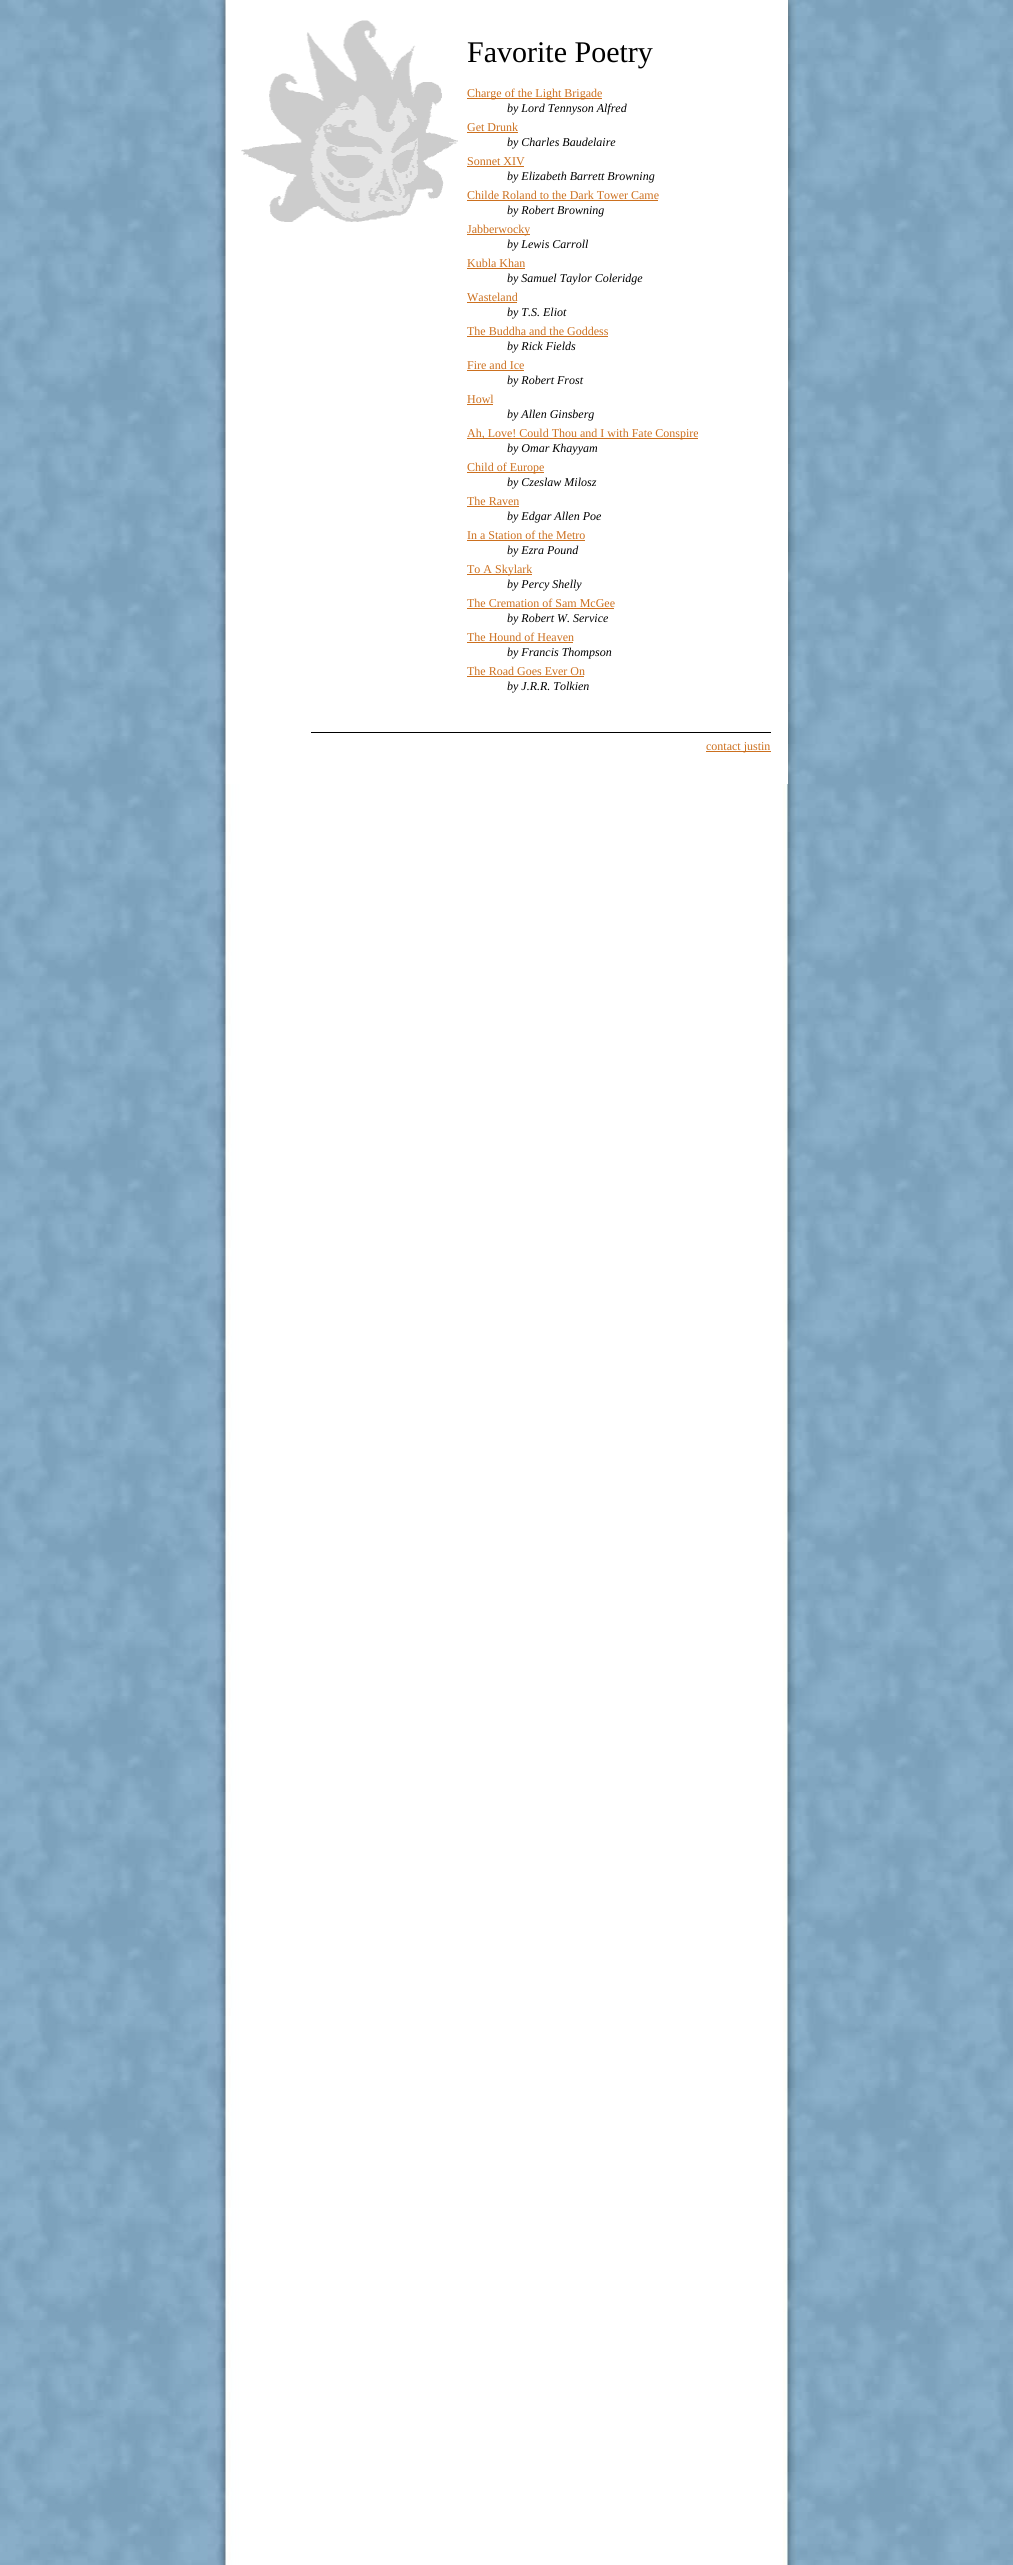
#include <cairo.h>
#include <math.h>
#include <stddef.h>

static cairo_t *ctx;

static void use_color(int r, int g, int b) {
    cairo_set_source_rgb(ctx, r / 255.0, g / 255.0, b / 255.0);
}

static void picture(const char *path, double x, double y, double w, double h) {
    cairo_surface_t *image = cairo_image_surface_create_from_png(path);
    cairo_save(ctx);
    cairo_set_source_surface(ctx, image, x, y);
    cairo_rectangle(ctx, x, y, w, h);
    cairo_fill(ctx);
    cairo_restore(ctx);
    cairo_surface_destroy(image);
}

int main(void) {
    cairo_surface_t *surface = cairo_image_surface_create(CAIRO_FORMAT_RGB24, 1013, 2565);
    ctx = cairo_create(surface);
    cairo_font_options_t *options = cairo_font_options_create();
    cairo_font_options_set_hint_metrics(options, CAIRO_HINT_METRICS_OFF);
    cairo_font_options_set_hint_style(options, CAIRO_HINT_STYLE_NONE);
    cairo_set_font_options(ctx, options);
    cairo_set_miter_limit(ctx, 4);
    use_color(255, 255, 255);
    cairo_paint(ctx);
    picture("img1.png", 0, 0, 1013, 2565);
    use_color(255, 255, 255);
    cairo_rectangle(ctx, 226, 0, 562, 784);
    cairo_fill(ctx);
    picture("img2.png", 241, 20, 217, 202);
    cairo_select_font_face(ctx, "Liberation Serif", CAIRO_FONT_SLANT_NORMAL, CAIRO_FONT_WEIGHT_NORMAL);
    cairo_set_font_size(ctx, 30);
    use_color(0, 0, 0);
    cairo_move_to(ctx, 467, 62);
    cairo_show_text(ctx, "Favorite Poetry");
    use_color(204, 112, 31);
    cairo_rectangle(ctx, 467, 98, 135, 1);
    cairo_fill(ctx);
    cairo_set_font_size(ctx, 12);
    cairo_move_to(ctx, 467, 97);
    cairo_show_text(ctx, "Charge of the Light Brigade");
    cairo_select_font_face(ctx, "Liberation Serif", CAIRO_FONT_SLANT_ITALIC, CAIRO_FONT_WEIGHT_NORMAL);
    use_color(0, 0, 0);
    cairo_move_to(ctx, 507, 112);
    cairo_show_text(ctx, "by Lord Tennyson Alfred");
    cairo_select_font_face(ctx, "Liberation Serif", CAIRO_FONT_SLANT_NORMAL, CAIRO_FONT_WEIGHT_NORMAL);
    use_color(204, 112, 31);
    cairo_move_to(ctx, 467, 131);
    cairo_show_text(ctx, "Get Drunk");
    cairo_rectangle(ctx, 467, 132, 51, 1);
    cairo_fill(ctx);
    cairo_select_font_face(ctx, "Liberation Serif", CAIRO_FONT_SLANT_ITALIC, CAIRO_FONT_WEIGHT_NORMAL);
    use_color(0, 0, 0);
    cairo_move_to(ctx, 507, 146);
    cairo_show_text(ctx, "by Charles Baudelaire");
    cairo_select_font_face(ctx, "Liberation Serif", CAIRO_FONT_SLANT_NORMAL, CAIRO_FONT_WEIGHT_NORMAL);
    use_color(204, 112, 31);
    cairo_move_to(ctx, 467, 165);
    cairo_show_text(ctx, "Sonnet XIV");
    cairo_rectangle(ctx, 467, 166, 57, 1);
    cairo_fill(ctx);
    cairo_select_font_face(ctx, "Liberation Serif", CAIRO_FONT_SLANT_ITALIC, CAIRO_FONT_WEIGHT_NORMAL);
    use_color(0, 0, 0);
    cairo_move_to(ctx, 507, 180);
    cairo_show_text(ctx, "by Elizabeth Barrett Browning");
    cairo_select_font_face(ctx, "Liberation Serif", CAIRO_FONT_SLANT_NORMAL, CAIRO_FONT_WEIGHT_NORMAL);
    use_color(204, 112, 31);
    cairo_move_to(ctx, 467, 199);
    cairo_show_text(ctx, "Childe Roland to the Dark Tower Came");
    cairo_rectangle(ctx, 467, 200, 191, 1);
    cairo_fill(ctx);
    cairo_select_font_face(ctx, "Liberation Serif", CAIRO_FONT_SLANT_ITALIC, CAIRO_FONT_WEIGHT_NORMAL);
    use_color(0, 0, 0);
    cairo_move_to(ctx, 507, 214);
    cairo_show_text(ctx, "by Robert Browning");
    use_color(204, 112, 31);
    cairo_rectangle(ctx, 467, 234, 63, 1);
    cairo_fill(ctx);
    cairo_select_font_face(ctx, "Liberation Serif", CAIRO_FONT_SLANT_NORMAL, CAIRO_FONT_WEIGHT_NORMAL);
    cairo_move_to(ctx, 467, 233);
    cairo_show_text(ctx, "Jabberwocky");
    cairo_select_font_face(ctx, "Liberation Serif", CAIRO_FONT_SLANT_ITALIC, CAIRO_FONT_WEIGHT_NORMAL);
    use_color(0, 0, 0);
    cairo_move_to(ctx, 507, 248);
    cairo_show_text(ctx, "by Lewis Carroll");
    cairo_select_font_face(ctx, "Liberation Serif", CAIRO_FONT_SLANT_NORMAL, CAIRO_FONT_WEIGHT_NORMAL);
    use_color(204, 112, 31);
    cairo_move_to(ctx, 467, 267);
    cairo_show_text(ctx, "Kubla Khan");
    cairo_rectangle(ctx, 467, 268, 58, 1);
    cairo_fill(ctx);
    cairo_select_font_face(ctx, "Liberation Serif", CAIRO_FONT_SLANT_ITALIC, CAIRO_FONT_WEIGHT_NORMAL);
    use_color(0, 0, 0);
    cairo_move_to(ctx, 507, 282);
    cairo_show_text(ctx, "by Samuel Taylor Coleridge");
    cairo_select_font_face(ctx, "Liberation Serif", CAIRO_FONT_SLANT_NORMAL, CAIRO_FONT_WEIGHT_NORMAL);
    use_color(204, 112, 31);
    cairo_move_to(ctx, 467, 301);
    cairo_show_text(ctx, "Wasteland");
    cairo_rectangle(ctx, 467, 302, 50, 1);
    cairo_fill(ctx);
    cairo_select_font_face(ctx, "Liberation Serif", CAIRO_FONT_SLANT_ITALIC, CAIRO_FONT_WEIGHT_NORMAL);
    use_color(0, 0, 0);
    cairo_move_to(ctx, 507, 316);
    cairo_show_text(ctx, "by T.S. Eliot");
    cairo_select_font_face(ctx, "Liberation Serif", CAIRO_FONT_SLANT_NORMAL, CAIRO_FONT_WEIGHT_NORMAL);
    use_color(204, 112, 31);
    cairo_move_to(ctx, 467, 335);
    cairo_show_text(ctx, "The Buddha and the Goddess");
    cairo_rectangle(ctx, 467, 336, 141, 1);
    cairo_fill(ctx);
    cairo_select_font_face(ctx, "Liberation Serif", CAIRO_FONT_SLANT_ITALIC, CAIRO_FONT_WEIGHT_NORMAL);
    use_color(0, 0, 0);
    cairo_move_to(ctx, 507, 350);
    cairo_show_text(ctx, "by Rick Fields");
    cairo_select_font_face(ctx, "Liberation Serif", CAIRO_FONT_SLANT_NORMAL, CAIRO_FONT_WEIGHT_NORMAL);
    use_color(204, 112, 31);
    cairo_move_to(ctx, 467, 369);
    cairo_show_text(ctx, "Fire and Ice");
    cairo_rectangle(ctx, 467, 370, 57, 1);
    cairo_fill(ctx);
    cairo_select_font_face(ctx, "Liberation Serif", CAIRO_FONT_SLANT_ITALIC, CAIRO_FONT_WEIGHT_NORMAL);
    use_color(0, 0, 0);
    cairo_move_to(ctx, 507, 384);
    cairo_show_text(ctx, "by Robert Frost");
    cairo_select_font_face(ctx, "Liberation Serif", CAIRO_FONT_SLANT_NORMAL, CAIRO_FONT_WEIGHT_NORMAL);
    use_color(204, 112, 31);
    cairo_move_to(ctx, 467, 403);
    cairo_show_text(ctx, "Howl");
    cairo_rectangle(ctx, 467, 404, 26, 1);
    cairo_fill(ctx);
    cairo_select_font_face(ctx, "Liberation Serif", CAIRO_FONT_SLANT_ITALIC, CAIRO_FONT_WEIGHT_NORMAL);
    use_color(0, 0, 0);
    cairo_move_to(ctx, 507, 418);
    cairo_show_text(ctx, "by Allen Ginsberg");
    use_color(204, 112, 31);
    cairo_rectangle(ctx, 467, 438, 231, 1);
    cairo_fill(ctx);
    cairo_select_font_face(ctx, "Liberation Serif", CAIRO_FONT_SLANT_NORMAL, CAIRO_FONT_WEIGHT_NORMAL);
    cairo_move_to(ctx, 467, 437);
    cairo_show_text(ctx, "Ah, Love! Could Thou and I with Fate Conspire");
    cairo_select_font_face(ctx, "Liberation Serif", CAIRO_FONT_SLANT_ITALIC, CAIRO_FONT_WEIGHT_NORMAL);
    use_color(0, 0, 0);
    cairo_move_to(ctx, 507, 452);
    cairo_show_text(ctx, "by Omar Khayyam");
    use_color(204, 112, 31);
    cairo_rectangle(ctx, 467, 472, 77, 1);
    cairo_fill(ctx);
    cairo_select_font_face(ctx, "Liberation Serif", CAIRO_FONT_SLANT_NORMAL, CAIRO_FONT_WEIGHT_NORMAL);
    cairo_move_to(ctx, 467, 471);
    cairo_show_text(ctx, "Child of Europe");
    cairo_select_font_face(ctx, "Liberation Serif", CAIRO_FONT_SLANT_ITALIC, CAIRO_FONT_WEIGHT_NORMAL);
    use_color(0, 0, 0);
    cairo_move_to(ctx, 507, 486);
    cairo_show_text(ctx, "by Czeslaw Milosz");
    cairo_select_font_face(ctx, "Liberation Serif", CAIRO_FONT_SLANT_NORMAL, CAIRO_FONT_WEIGHT_NORMAL);
    use_color(204, 112, 31);
    cairo_move_to(ctx, 467, 505);
    cairo_show_text(ctx, "The Raven");
    cairo_rectangle(ctx, 467, 506, 52, 1);
    cairo_fill(ctx);
    cairo_select_font_face(ctx, "Liberation Serif", CAIRO_FONT_SLANT_ITALIC, CAIRO_FONT_WEIGHT_NORMAL);
    use_color(0, 0, 0);
    cairo_move_to(ctx, 507, 520);
    cairo_show_text(ctx, "by Edgar Allen Poe");
    cairo_select_font_face(ctx, "Liberation Serif", CAIRO_FONT_SLANT_NORMAL, CAIRO_FONT_WEIGHT_NORMAL);
    use_color(204, 112, 31);
    cairo_move_to(ctx, 467, 539);
    cairo_show_text(ctx, "In a Station of the Metro");
    cairo_rectangle(ctx, 467, 540, 118, 1);
    cairo_fill(ctx);
    cairo_select_font_face(ctx, "Liberation Serif", CAIRO_FONT_SLANT_ITALIC, CAIRO_FONT_WEIGHT_NORMAL);
    use_color(0, 0, 0);
    cairo_move_to(ctx, 507, 554);
    cairo_show_text(ctx, "by Ezra Pound");
    use_color(204, 112, 31);
    cairo_rectangle(ctx, 467, 574, 65, 1);
    cairo_fill(ctx);
    cairo_select_font_face(ctx, "Liberation Serif", CAIRO_FONT_SLANT_NORMAL, CAIRO_FONT_WEIGHT_NORMAL);
    cairo_move_to(ctx, 467, 573);
    cairo_show_text(ctx, "To A Skylark");
    cairo_select_font_face(ctx, "Liberation Serif", CAIRO_FONT_SLANT_ITALIC, CAIRO_FONT_WEIGHT_NORMAL);
    use_color(0, 0, 0);
    cairo_move_to(ctx, 507, 588);
    cairo_show_text(ctx, "by Percy Shelly");
    cairo_select_font_face(ctx, "Liberation Serif", CAIRO_FONT_SLANT_NORMAL, CAIRO_FONT_WEIGHT_NORMAL);
    use_color(204, 112, 31);
    cairo_move_to(ctx, 467, 607);
    cairo_show_text(ctx, "The Cremation of Sam McGee");
    cairo_rectangle(ctx, 467, 608, 147, 1);
    cairo_fill(ctx);
    cairo_select_font_face(ctx, "Liberation Serif", CAIRO_FONT_SLANT_ITALIC, CAIRO_FONT_WEIGHT_NORMAL);
    use_color(0, 0, 0);
    cairo_move_to(ctx, 507, 622);
    cairo_show_text(ctx, "by Robert W. Service");
    cairo_select_font_face(ctx, "Liberation Serif", CAIRO_FONT_SLANT_NORMAL, CAIRO_FONT_WEIGHT_NORMAL);
    use_color(204, 112, 31);
    cairo_move_to(ctx, 467, 641);
    cairo_show_text(ctx, "The Hound of Heaven");
    cairo_rectangle(ctx, 467, 642, 106, 1);
    cairo_fill(ctx);
    cairo_select_font_face(ctx, "Liberation Serif", CAIRO_FONT_SLANT_ITALIC, CAIRO_FONT_WEIGHT_NORMAL);
    use_color(0, 0, 0);
    cairo_move_to(ctx, 507, 656);
    cairo_show_text(ctx, "by Francis Thompson");
    cairo_select_font_face(ctx, "Liberation Serif", CAIRO_FONT_SLANT_NORMAL, CAIRO_FONT_WEIGHT_NORMAL);
    use_color(204, 112, 31);
    cairo_move_to(ctx, 467, 675);
    cairo_show_text(ctx, "The Road Goes Ever On");
    cairo_rectangle(ctx, 467, 676, 117, 1);
    cairo_fill(ctx);
    cairo_select_font_face(ctx, "Liberation Serif", CAIRO_FONT_SLANT_ITALIC, CAIRO_FONT_WEIGHT_NORMAL);
    use_color(0, 0, 0);
    cairo_move_to(ctx, 507, 690);
    cairo_show_text(ctx, "by J.R.R. Tolkien");
    cairo_rectangle(ctx, 311, 732, 460, 1);
    cairo_fill(ctx);
    use_color(204, 112, 31);
    cairo_rectangle(ctx, 706, 751, 65, 1);
    cairo_fill(ctx);
    cairo_select_font_face(ctx, "Liberation Serif", CAIRO_FONT_SLANT_NORMAL, CAIRO_FONT_WEIGHT_NORMAL);
    cairo_move_to(ctx, 706, 750);
    cairo_show_text(ctx, "contact justin");
    cairo_surface_write_to_png(surface, "result.png");
    cairo_font_options_destroy(options);
    cairo_destroy(ctx);
    cairo_surface_destroy(surface);
    return 0;
}
